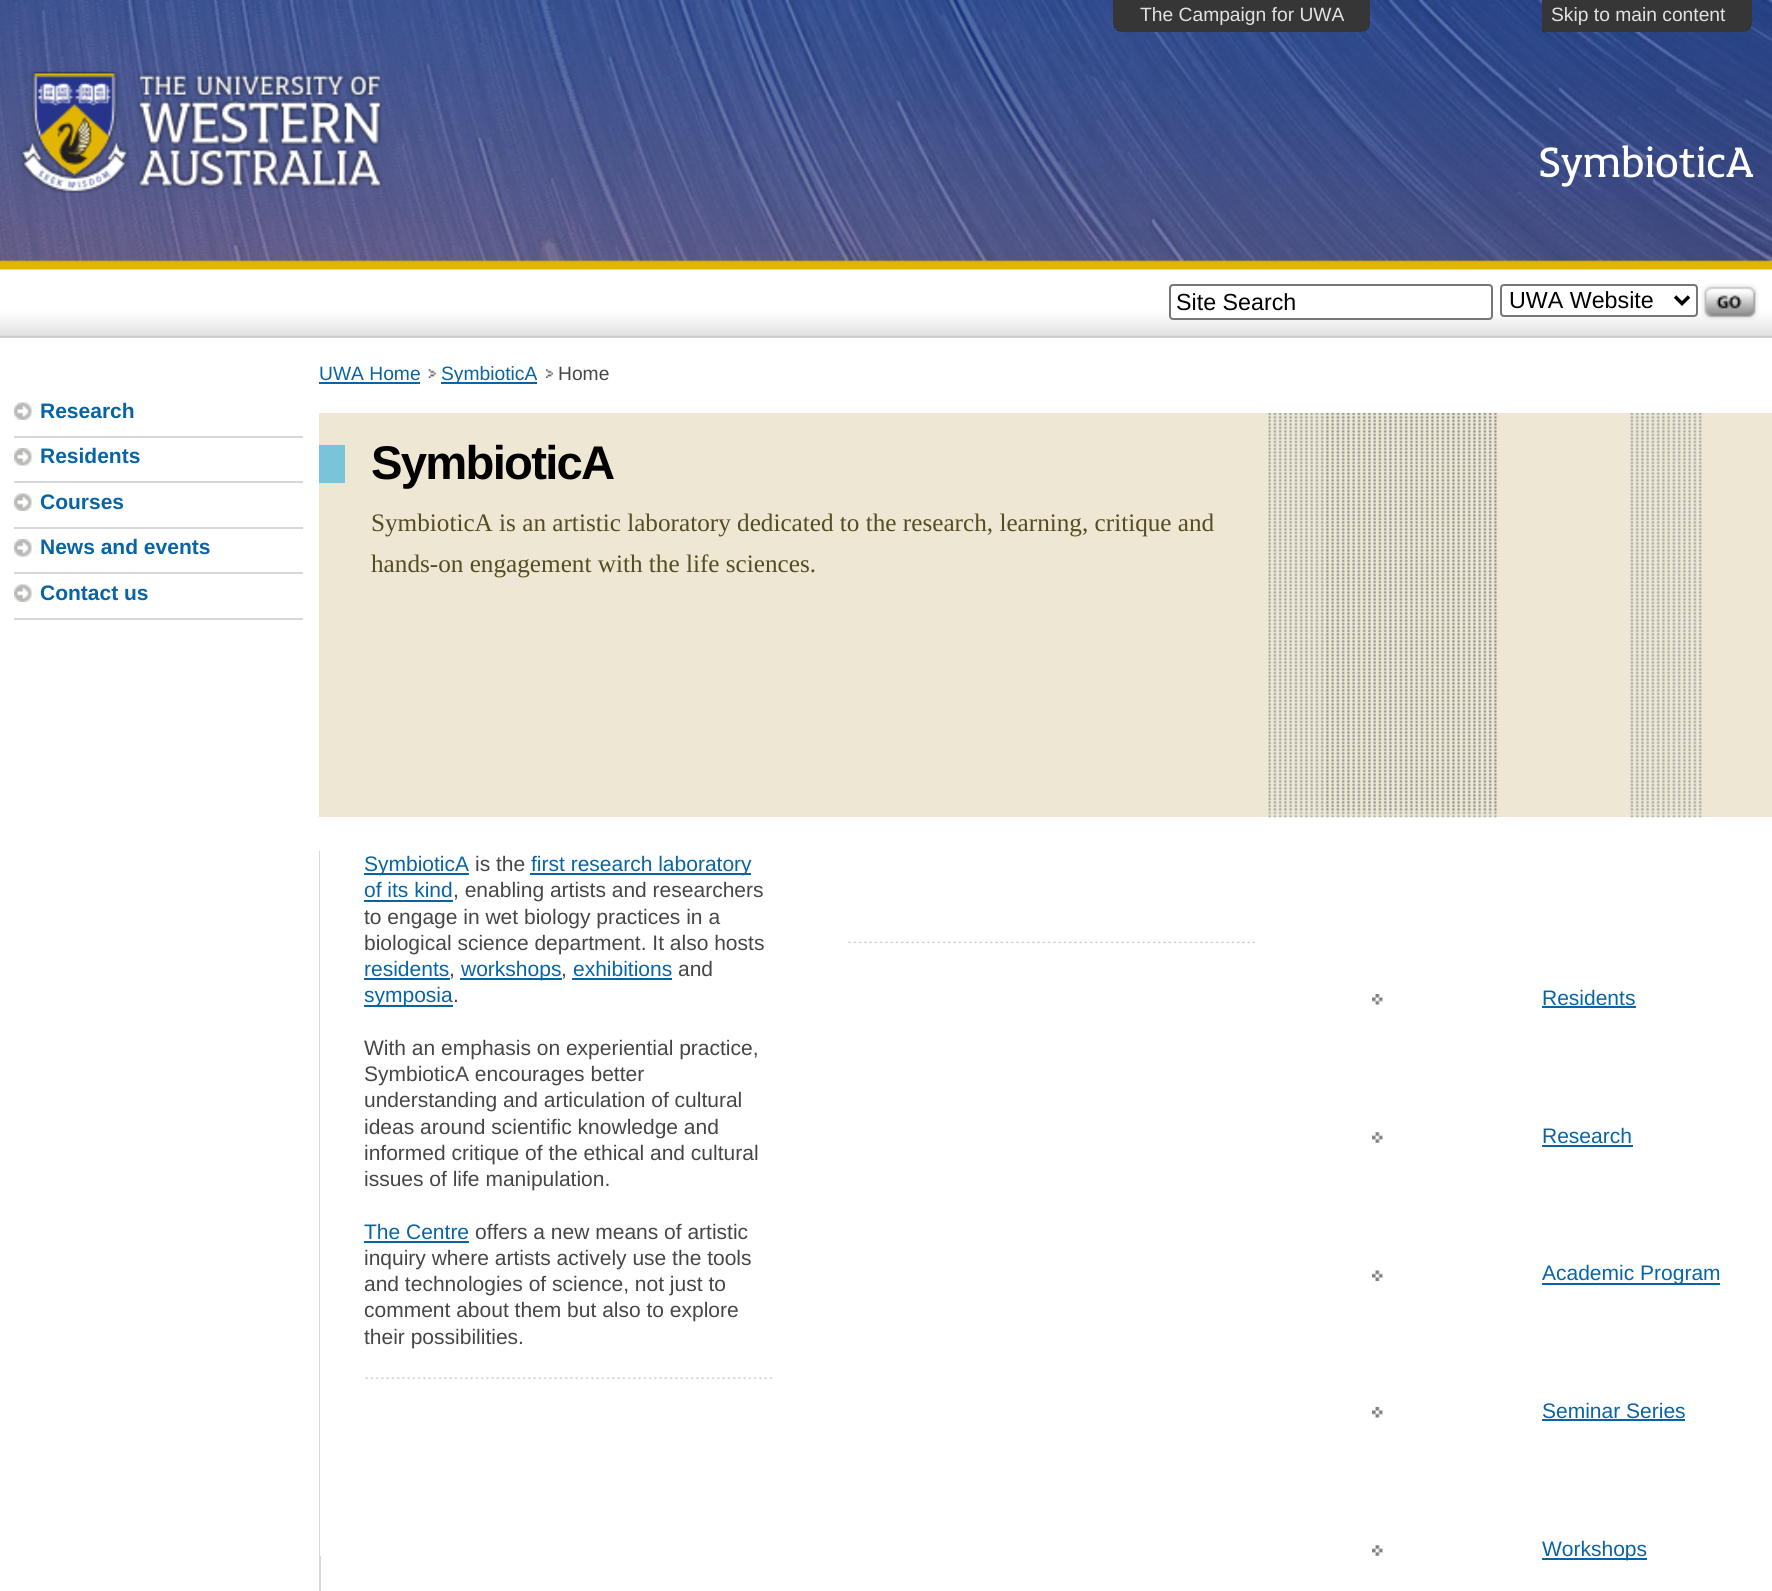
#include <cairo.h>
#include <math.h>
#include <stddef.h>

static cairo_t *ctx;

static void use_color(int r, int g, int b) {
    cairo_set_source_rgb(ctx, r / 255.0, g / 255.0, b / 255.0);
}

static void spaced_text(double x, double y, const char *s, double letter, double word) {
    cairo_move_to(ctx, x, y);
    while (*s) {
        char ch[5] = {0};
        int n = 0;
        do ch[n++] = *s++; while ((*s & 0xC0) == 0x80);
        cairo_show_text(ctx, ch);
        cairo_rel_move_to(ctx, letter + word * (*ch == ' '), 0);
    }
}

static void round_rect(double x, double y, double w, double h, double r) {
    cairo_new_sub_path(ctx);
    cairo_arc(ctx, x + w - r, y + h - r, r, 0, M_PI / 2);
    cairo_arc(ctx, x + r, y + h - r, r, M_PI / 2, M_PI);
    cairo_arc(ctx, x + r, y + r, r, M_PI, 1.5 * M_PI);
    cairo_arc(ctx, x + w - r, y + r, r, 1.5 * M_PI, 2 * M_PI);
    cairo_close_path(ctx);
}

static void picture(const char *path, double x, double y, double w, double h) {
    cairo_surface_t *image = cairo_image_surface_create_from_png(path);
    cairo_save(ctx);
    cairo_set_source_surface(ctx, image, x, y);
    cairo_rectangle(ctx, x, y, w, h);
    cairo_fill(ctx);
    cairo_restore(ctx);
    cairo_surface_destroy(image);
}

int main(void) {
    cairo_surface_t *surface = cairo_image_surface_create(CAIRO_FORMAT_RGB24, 1772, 1591);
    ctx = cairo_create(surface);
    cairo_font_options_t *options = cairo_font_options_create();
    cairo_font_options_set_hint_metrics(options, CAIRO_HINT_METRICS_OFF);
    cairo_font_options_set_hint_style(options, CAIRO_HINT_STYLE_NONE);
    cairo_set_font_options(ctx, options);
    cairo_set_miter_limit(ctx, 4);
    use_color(255, 255, 255);
    cairo_paint(ctx);
    picture("img1.png", 0, 0, 1772, 338);
    use_color(54, 54, 54);
    cairo_new_path(ctx);
    cairo_move_to(ctx, 1113, 0);
    cairo_line_to(ctx, 1370, 0);
    cairo_line_to(ctx, 1370, 23);
    cairo_curve_to(ctx, 1370, 28, 1366, 32, 1361, 32);
    cairo_line_to(ctx, 1122, 32);
    cairo_curve_to(ctx, 1117, 32, 1113, 28, 1113, 23);
    cairo_close_path(ctx);
    cairo_fill(ctx);
    picture("img2.png", 1113, 26, 6, 5);
    picture("img3.png", 1365, 26, 5, 5);
    cairo_select_font_face(ctx, "Liberation Sans", CAIRO_FONT_SLANT_NORMAL, CAIRO_FONT_WEIGHT_NORMAL);
    cairo_set_font_size(ctx, 19.25);
    use_color(226, 226, 226);
    cairo_move_to(ctx, 1140, 21);
    cairo_show_text(ctx, "The Campaign for UWA");
    use_color(54, 54, 54);
    cairo_new_path(ctx);
    cairo_move_to(ctx, 1542, 0);
    cairo_line_to(ctx, 1752, 0);
    cairo_line_to(ctx, 1752, 23);
    cairo_curve_to(ctx, 1752, 28, 1748, 32, 1743, 32);
    cairo_line_to(ctx, 1542, 32);
    cairo_close_path(ctx);
    cairo_fill(ctx);
    picture("img4.png", 1746, 26, 5, 5);
    use_color(226, 226, 226);
    cairo_move_to(ctx, 1551, 21);
    cairo_show_text(ctx, "Skip to main content");
    picture("img5.png", 20, 71, 363, 122);
    cairo_select_font_face(ctx, "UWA", CAIRO_FONT_SLANT_NORMAL, CAIRO_FONT_WEIGHT_NORMAL);
    cairo_set_font_size(ctx, 45.5);
    use_color(255, 255, 255);
    cairo_move_to(ctx, 1539, 177);
    cairo_show_text(ctx, "SymbioticA");
    round_rect(1170, 285, 322, 34, 3);
    cairo_fill_preserve(ctx);
    use_color(118, 118, 118);
    cairo_stroke(ctx);
    cairo_select_font_face(ctx, "Liberation Sans", CAIRO_FONT_SLANT_NORMAL, CAIRO_FONT_WEIGHT_NORMAL);
    cairo_set_font_size(ctx, 23.25);
    use_color(0, 0, 0);
    cairo_move_to(ctx, 1176, 310);
    cairo_show_text(ctx, "Site Search");
    use_color(255, 255, 255);
    round_rect(1501, 285, 196, 31, 3);
    cairo_fill_preserve(ctx);
    use_color(118, 118, 118);
    cairo_stroke(ctx);
    cairo_new_path(ctx);
    cairo_move_to(ctx, 1675, 296.5);
    cairo_line_to(ctx, 1682, 303.5);
    cairo_line_to(ctx, 1689, 296.5);
    use_color(0, 0, 0);
    cairo_set_line_width(ctx, 3.5);
    cairo_stroke(ctx);
    cairo_move_to(ctx, 1509, 308);
    cairo_show_text(ctx, "UWA Website");
    picture("img6.png", 1701, 283, 58, 37);
    use_color(215, 215, 215);
    cairo_rectangle(ctx, 14, 436, 289, 2);
    cairo_fill(ctx);
    picture("img7.png", 14, 402, 18, 18);
    cairo_select_font_face(ctx, "Liberation Sans", CAIRO_FONT_SLANT_NORMAL, CAIRO_FONT_WEIGHT_BOLD);
    cairo_set_font_size(ctx, 21);
    use_color(8, 100, 165);
    cairo_move_to(ctx, 40, 418);
    cairo_show_text(ctx, "Research");
    use_color(215, 215, 215);
    cairo_rectangle(ctx, 14, 481, 289, 2);
    cairo_fill(ctx);
    picture("img8.png", 14, 448, 18, 18);
    use_color(8, 100, 165);
    cairo_move_to(ctx, 40, 463);
    cairo_show_text(ctx, "Residents");
    use_color(215, 215, 215);
    cairo_rectangle(ctx, 14, 527, 289, 2);
    cairo_fill(ctx);
    picture("img7.png", 14, 493, 18, 18);
    use_color(8, 100, 165);
    cairo_move_to(ctx, 40, 509);
    cairo_show_text(ctx, "Courses");
    use_color(215, 215, 215);
    cairo_rectangle(ctx, 14, 572, 289, 2);
    cairo_fill(ctx);
    picture("img8.png", 14, 539, 18, 18);
    use_color(8, 100, 165);
    cairo_move_to(ctx, 40, 554);
    cairo_show_text(ctx, "News and events");
    use_color(215, 215, 215);
    cairo_rectangle(ctx, 14, 618, 289, 2);
    cairo_fill(ctx);
    picture("img7.png", 14, 584, 18, 18);
    use_color(8, 100, 165);
    cairo_move_to(ctx, 40, 600);
    cairo_show_text(ctx, "Contact us");
    cairo_select_font_face(ctx, "Liberation Sans", CAIRO_FONT_SLANT_NORMAL, CAIRO_FONT_WEIGHT_NORMAL);
    cairo_set_font_size(ctx, 19.25);
    cairo_move_to(ctx, 319, 380);
    cairo_show_text(ctx, "UWA Home");
    cairo_rectangle(ctx, 319, 382, 101, 2);
    cairo_fill(ctx);
    picture("img9.png", 428, 369, 8, 9);
    cairo_rectangle(ctx, 441, 382, 96, 2);
    cairo_fill(ctx);
    cairo_move_to(ctx, 441, 380);
    cairo_show_text(ctx, "SymbioticA");
    picture("img10.png", 546, 369, 7, 9);
    use_color(70, 70, 70);
    cairo_move_to(ctx, 558, 380);
    cairo_show_text(ctx, "Home");
    use_color(237, 231, 211);
    cairo_rectangle(ctx, 319, 413, 1453, 404);
    cairo_fill(ctx);
    picture("img11.png", 1268, 413, 434, 405);
    use_color(122, 196, 217);
    cairo_rectangle(ctx, 319, 445, 26, 38);
    cairo_fill(ctx);
    cairo_select_font_face(ctx, "Liberation Sans", CAIRO_FONT_SLANT_NORMAL, CAIRO_FONT_WEIGHT_BOLD);
    cairo_set_font_size(ctx, 47.25);
    use_color(0, 0, 0);
    spaced_text(371, 479, "SymbioticA", -1.75, 0);
    cairo_select_font_face(ctx, "Liberation Serif", CAIRO_FONT_SLANT_NORMAL, CAIRO_FONT_WEIGHT_NORMAL);
    cairo_set_font_size(ctx, 25.2);
    use_color(86, 76, 35);
    cairo_move_to(ctx, 371, 531);
    cairo_show_text(ctx, "SymbioticA is an artistic laboratory dedicated to the research, learning, critique and");
    cairo_move_to(ctx, 371, 572);
    cairo_show_text(ctx, "hands-on engagement with the life sciences.");
    picture("img12.png", 1268, 413, 434, 405);
    use_color(215, 215, 215);
    cairo_rectangle(ctx, 319, 851, 2, 740);
    cairo_fill(ctx);
    cairo_rectangle(ctx, 321, 852, 996, 703);
    use_color(255, 255, 255);
    cairo_set_line_width(ctx, 2);
    cairo_stroke(ctx);
    use_color(8, 100, 165);
    cairo_rectangle(ctx, 364, 873, 105, 2);
    cairo_fill(ctx);
    cairo_select_font_face(ctx, "Liberation Sans", CAIRO_FONT_SLANT_NORMAL, CAIRO_FONT_WEIGHT_NORMAL);
    cairo_set_font_size(ctx, 21);
    cairo_move_to(ctx, 364, 871);
    cairo_show_text(ctx, "SymbioticA");
    use_color(70, 70, 70);
    cairo_move_to(ctx, 475, 871);
    cairo_show_text(ctx, "is the");
    use_color(8, 100, 165);
    cairo_rectangle(ctx, 530, 873, 221, 2);
    cairo_fill(ctx);
    cairo_move_to(ctx, 531, 871);
    cairo_show_text(ctx, "first research laboratory");
    cairo_move_to(ctx, 364, 897);
    cairo_show_text(ctx, "of its kind");
    cairo_rectangle(ctx, 364, 900, 89, 2);
    cairo_fill(ctx);
    use_color(70, 70, 70);
    cairo_move_to(ctx, 453, 897);
    cairo_show_text(ctx, ", enabling artists and researchers");
    cairo_move_to(ctx, 364, 924);
    cairo_show_text(ctx, "to engage in wet biology practices in a");
    cairo_move_to(ctx, 364, 950);
    cairo_show_text(ctx, "biological science department. It also hosts");
    use_color(8, 100, 165);
    cairo_move_to(ctx, 364, 976);
    cairo_show_text(ctx, "residents");
    cairo_rectangle(ctx, 364, 978, 86, 2);
    cairo_fill(ctx);
    use_color(70, 70, 70);
    cairo_move_to(ctx, 449, 976);
    cairo_show_text(ctx, ",");
    use_color(8, 100, 165);
    cairo_rectangle(ctx, 460, 978, 102, 2);
    cairo_fill(ctx);
    cairo_move_to(ctx, 461, 976);
    cairo_show_text(ctx, "workshops");
    use_color(70, 70, 70);
    cairo_move_to(ctx, 561, 976);
    cairo_show_text(ctx, ",");
    use_color(8, 100, 165);
    cairo_move_to(ctx, 573, 976);
    cairo_show_text(ctx, "exhibitions");
    cairo_rectangle(ctx, 572, 978, 100, 2);
    cairo_fill(ctx);
    use_color(70, 70, 70);
    cairo_move_to(ctx, 678, 976);
    cairo_show_text(ctx, "and");
    use_color(8, 100, 165);
    cairo_rectangle(ctx, 364, 1005, 89, 2);
    cairo_fill(ctx);
    cairo_move_to(ctx, 364, 1002);
    cairo_show_text(ctx, "symposia");
    use_color(70, 70, 70);
    cairo_move_to(ctx, 453, 1002);
    cairo_show_text(ctx, ".");
    cairo_move_to(ctx, 364, 1055);
    cairo_show_text(ctx, "With an emphasis on experiential practice,");
    cairo_move_to(ctx, 364, 1081);
    cairo_show_text(ctx, "SymbioticA encourages better");
    cairo_move_to(ctx, 364, 1107);
    cairo_show_text(ctx, "understanding and articulation of cultural");
    cairo_move_to(ctx, 364, 1134);
    cairo_show_text(ctx, "ideas around scientific knowledge and");
    cairo_move_to(ctx, 364, 1160);
    cairo_show_text(ctx, "informed critique of the ethical and cultural");
    cairo_move_to(ctx, 364, 1186);
    cairo_show_text(ctx, "issues of life manipulation.");
    use_color(8, 100, 165);
    cairo_move_to(ctx, 364, 1239);
    cairo_show_text(ctx, "The Centre");
    cairo_rectangle(ctx, 364, 1241, 105, 2);
    cairo_fill(ctx);
    use_color(70, 70, 70);
    cairo_move_to(ctx, 475, 1239);
    cairo_show_text(ctx, "offers a new means of artistic");
    cairo_move_to(ctx, 364, 1265);
    cairo_show_text(ctx, "inquiry where artists actively use the tools");
    cairo_move_to(ctx, 364, 1291);
    cairo_show_text(ctx, "and technologies of science, not just to");
    cairo_move_to(ctx, 364, 1317);
    cairo_show_text(ctx, "comment about them but also to explore");
    cairo_move_to(ctx, 364, 1344);
    cairo_show_text(ctx, "their possibilities.");
    picture("img13.png", 365, 1377, 408, 2);
    picture("img14.png", 848, 941, 408, 3);
    picture("img15.png", 1372, 994, 11, 11);
    use_color(8, 100, 165);
    cairo_move_to(ctx, 1542, 1005);
    cairo_show_text(ctx, "Residents");
    cairo_rectangle(ctx, 1542, 1006, 94, 2);
    cairo_fill(ctx);
    picture("img16.png", 1372, 1132, 11, 11);
    cairo_move_to(ctx, 1542, 1143);
    cairo_show_text(ctx, "Research");
    cairo_rectangle(ctx, 1542, 1145, 91, 2);
    cairo_fill(ctx);
    picture("img17.png", 1372, 1270, 11, 11);
    cairo_rectangle(ctx, 1542, 1283, 178, 2);
    cairo_fill(ctx);
    cairo_move_to(ctx, 1542, 1280);
    cairo_show_text(ctx, "Academic Program");
    picture("img15.png", 1372, 1407, 11, 11);
    cairo_move_to(ctx, 1542, 1418);
    cairo_show_text(ctx, "Seminar Series");
    cairo_rectangle(ctx, 1542, 1419, 143, 2);
    cairo_fill(ctx);
    picture("img16.png", 1372, 1545, 11, 11);
    cairo_rectangle(ctx, 1542, 1558, 105, 2);
    cairo_fill(ctx);
    cairo_move_to(ctx, 1542, 1556);
    cairo_show_text(ctx, "Workshops");
    cairo_surface_write_to_png(surface, "result.png");
    cairo_font_options_destroy(options);
    cairo_destroy(ctx);
    cairo_surface_destroy(surface);
    return 0;
}
